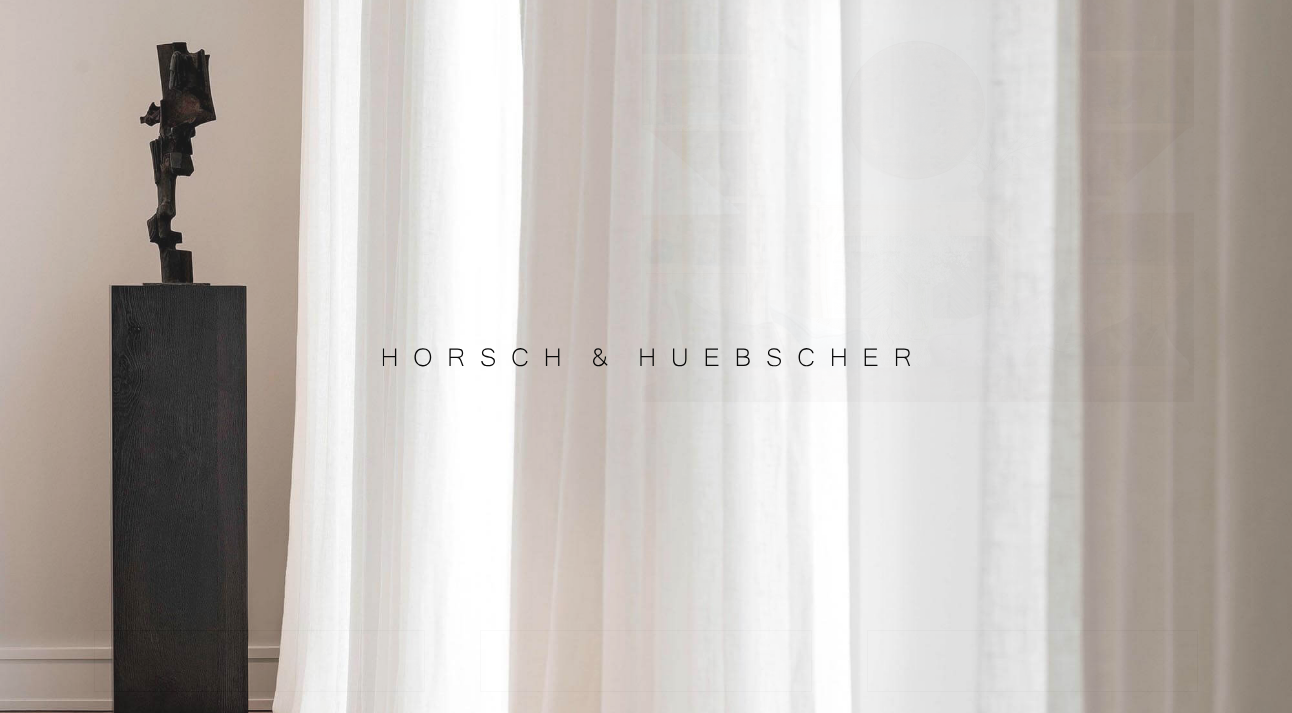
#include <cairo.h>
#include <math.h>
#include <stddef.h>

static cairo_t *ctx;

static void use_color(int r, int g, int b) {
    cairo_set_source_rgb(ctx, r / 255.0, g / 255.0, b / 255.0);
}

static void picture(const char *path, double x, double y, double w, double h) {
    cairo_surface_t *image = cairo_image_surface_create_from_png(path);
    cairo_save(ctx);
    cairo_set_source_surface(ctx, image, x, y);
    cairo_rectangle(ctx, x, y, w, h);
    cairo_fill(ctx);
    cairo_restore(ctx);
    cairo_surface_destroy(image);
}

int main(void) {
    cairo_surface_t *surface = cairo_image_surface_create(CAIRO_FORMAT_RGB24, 1292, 713);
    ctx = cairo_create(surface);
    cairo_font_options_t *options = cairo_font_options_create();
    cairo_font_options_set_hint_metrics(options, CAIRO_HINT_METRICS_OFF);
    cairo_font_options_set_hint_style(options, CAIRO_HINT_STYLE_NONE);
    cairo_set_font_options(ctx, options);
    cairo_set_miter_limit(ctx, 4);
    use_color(255, 255, 255);
    cairo_paint(ctx);
    picture("img3.png", 642, 0, 552, 402);
    cairo_rectangle(ctx, 94.5, 630.5, 330, 61);
    use_color(197, 197, 197);
    cairo_set_line_width(ctx, 1);
    cairo_stroke(ctx);
    cairo_rectangle(ctx, 480.5, 630.5, 331, 61);
    cairo_stroke(ctx);
    cairo_rectangle(ctx, 867.5, 630.5, 330, 61);
    cairo_stroke(ctx);
    picture("img1.png", 0, 0, 1292, 713);
    picture("img2.png", 382, 348, 528, 19);
    cairo_surface_write_to_png(surface, "result.png");
    cairo_font_options_destroy(options);
    cairo_destroy(ctx);
    cairo_surface_destroy(surface);
    return 0;
}
